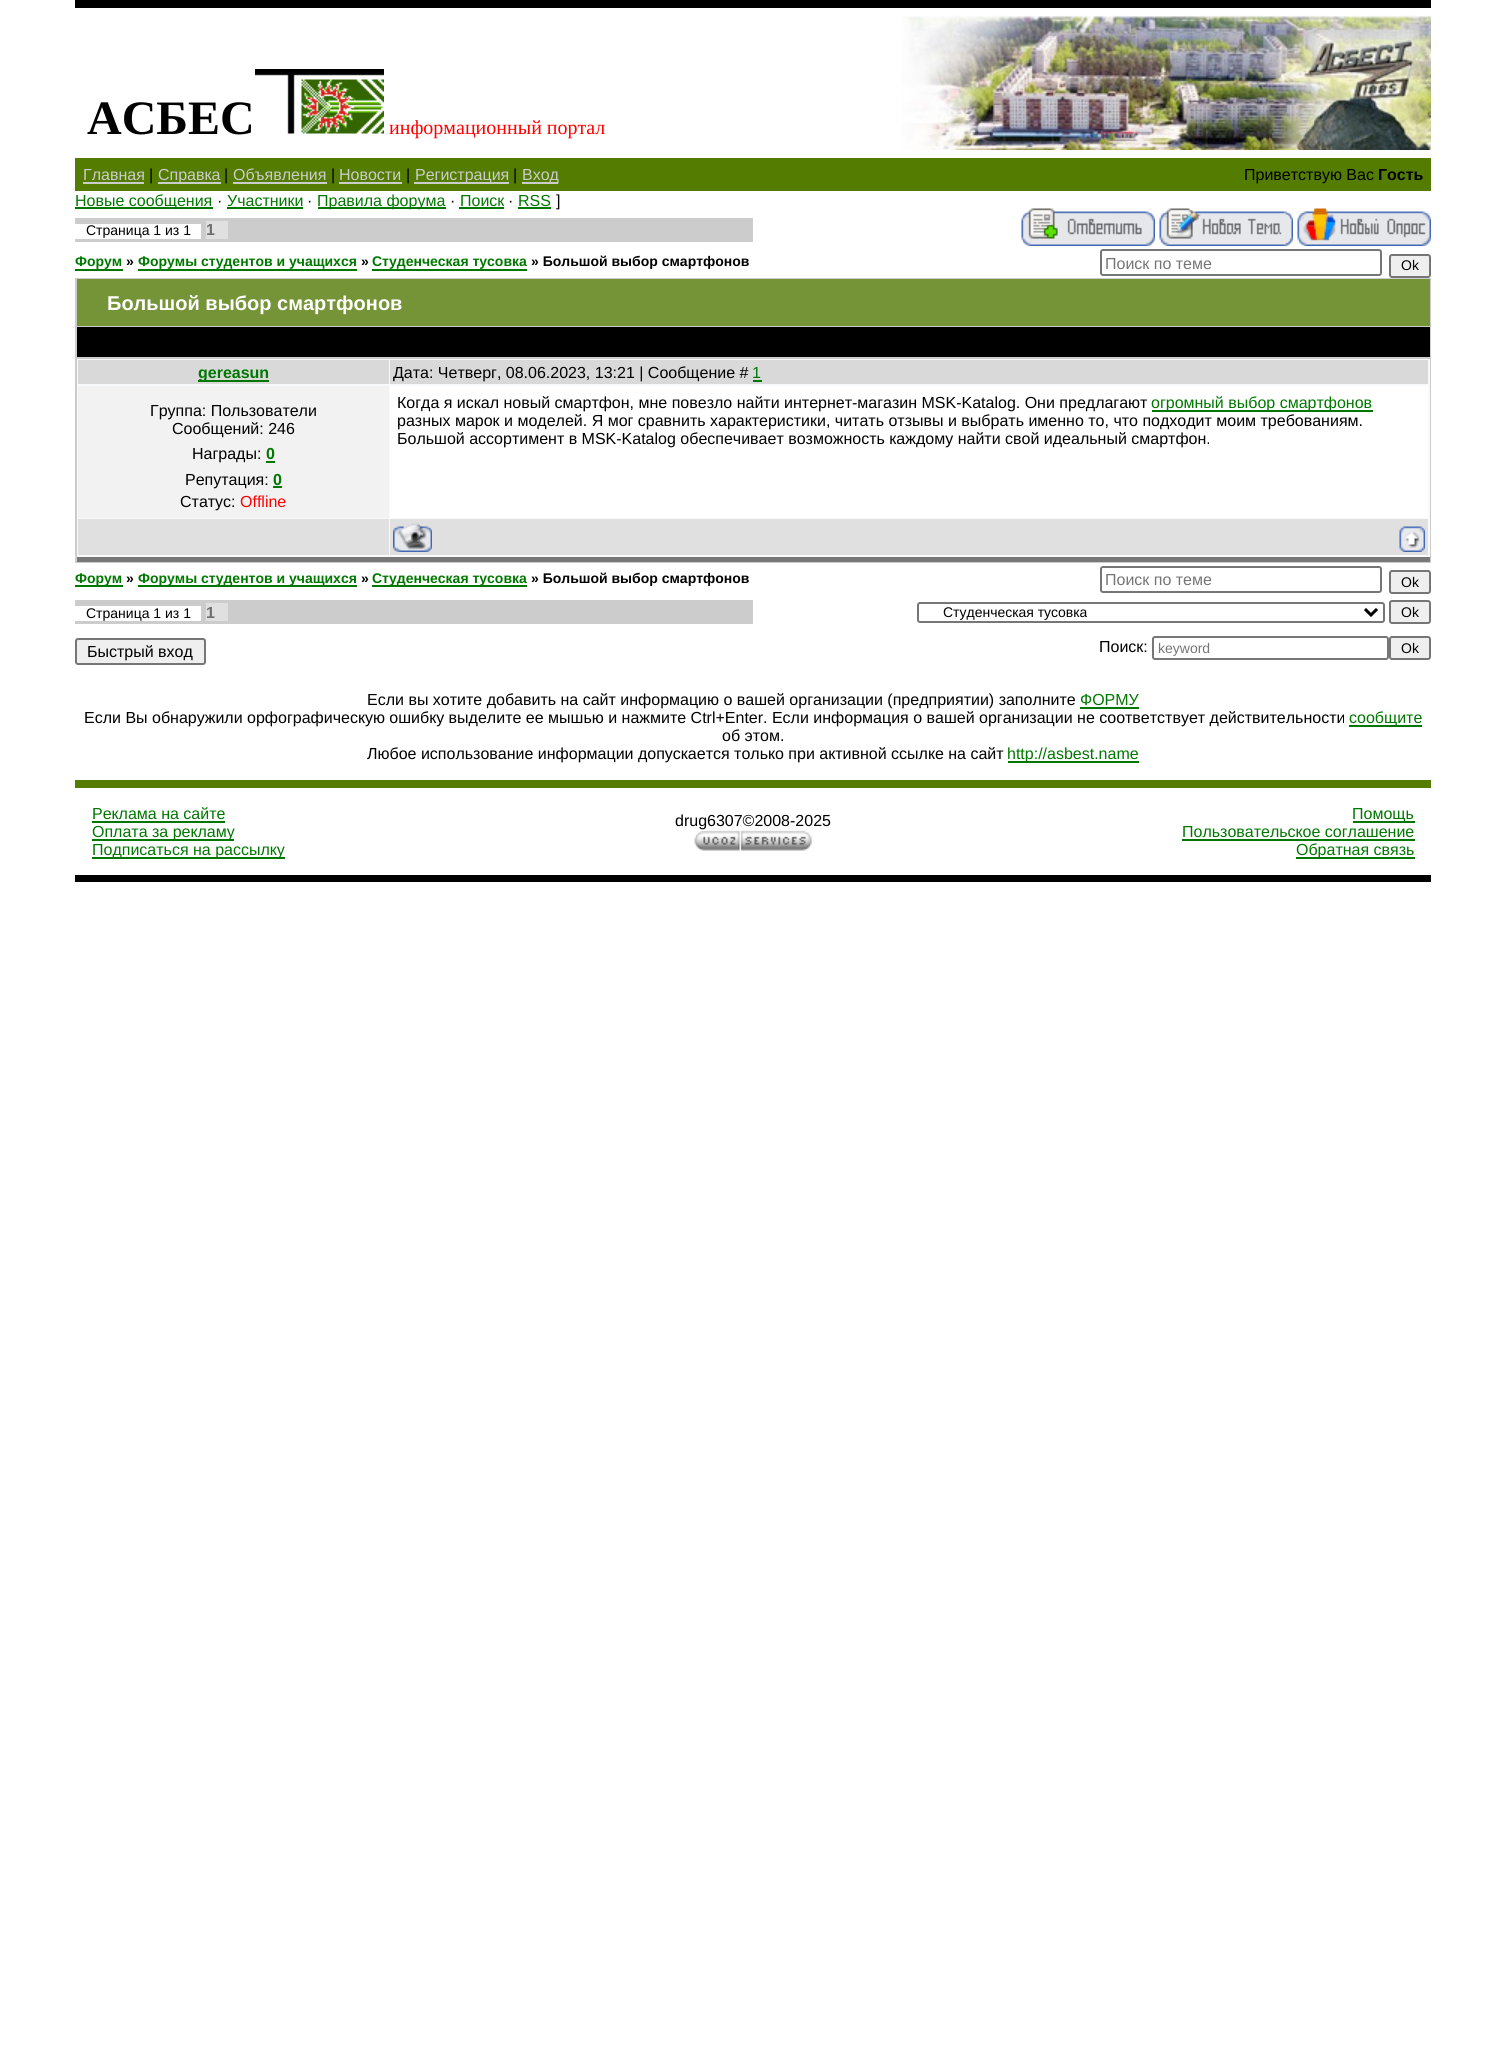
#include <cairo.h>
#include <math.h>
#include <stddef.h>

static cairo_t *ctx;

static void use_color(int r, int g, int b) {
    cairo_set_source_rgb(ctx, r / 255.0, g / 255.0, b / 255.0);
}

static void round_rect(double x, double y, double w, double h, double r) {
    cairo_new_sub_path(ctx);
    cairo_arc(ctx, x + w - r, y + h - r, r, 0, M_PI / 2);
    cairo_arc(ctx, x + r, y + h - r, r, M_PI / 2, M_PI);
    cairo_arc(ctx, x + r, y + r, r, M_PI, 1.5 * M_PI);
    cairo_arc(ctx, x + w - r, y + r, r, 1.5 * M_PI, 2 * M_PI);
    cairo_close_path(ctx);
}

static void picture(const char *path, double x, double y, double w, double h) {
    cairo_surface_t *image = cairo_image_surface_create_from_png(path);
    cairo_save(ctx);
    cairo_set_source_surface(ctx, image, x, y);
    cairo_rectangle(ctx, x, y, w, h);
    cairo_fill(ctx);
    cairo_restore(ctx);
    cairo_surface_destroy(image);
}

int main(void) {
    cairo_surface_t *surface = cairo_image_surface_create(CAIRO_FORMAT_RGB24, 1506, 2067);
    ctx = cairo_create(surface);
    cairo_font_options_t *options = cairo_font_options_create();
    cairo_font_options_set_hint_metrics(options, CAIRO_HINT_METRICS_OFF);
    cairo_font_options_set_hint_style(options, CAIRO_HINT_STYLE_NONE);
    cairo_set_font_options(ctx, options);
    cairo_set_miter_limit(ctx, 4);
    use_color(255, 255, 255);
    cairo_paint(ctx);
    use_color(0, 0, 0);
    cairo_rectangle(ctx, 75, 0, 1356, 8);
    cairo_fill(ctx);
    picture("img1.png", 901, 15, 530, 135);
    cairo_select_font_face(ctx, "Liberation Serif", CAIRO_FONT_SLANT_NORMAL, CAIRO_FONT_WEIGHT_BOLD);
    cairo_set_font_size(ctx, 48);
    cairo_move_to(ctx, 87, 134);
    cairo_show_text(ctx, "АСБЕС");
    picture("img2.png", 255, 69, 129, 65);
    cairo_select_font_face(ctx, "Liberation Serif", CAIRO_FONT_SLANT_NORMAL, CAIRO_FONT_WEIGHT_NORMAL);
    cairo_set_font_size(ctx, 20);
    use_color(255, 0, 0);
    cairo_move_to(ctx, 389, 134);
    cairo_show_text(ctx, "информационный портал");
    use_color(83, 124, 1);
    cairo_rectangle(ctx, 75, 158, 1356, 33);
    cairo_fill(ctx);
    cairo_select_font_face(ctx, "Liberation Sans", CAIRO_FONT_SLANT_NORMAL, CAIRO_FONT_WEIGHT_NORMAL);
    cairo_set_font_size(ctx, 16);
    use_color(204, 204, 204);
    cairo_move_to(ctx, 83, 180);
    cairo_show_text(ctx, "Главная");
    cairo_rectangle(ctx, 83, 182, 61, 2);
    cairo_fill(ctx);
    use_color(0, 0, 0);
    cairo_move_to(ctx, 149, 180);
    cairo_show_text(ctx, "|");
    use_color(204, 204, 204);
    cairo_rectangle(ctx, 158, 182, 63, 2);
    cairo_fill(ctx);
    cairo_move_to(ctx, 158, 180);
    cairo_show_text(ctx, "Справка");
    use_color(0, 0, 0);
    cairo_move_to(ctx, 224, 180);
    cairo_show_text(ctx, "|");
    use_color(204, 204, 204);
    cairo_move_to(ctx, 233, 180);
    cairo_show_text(ctx, "Объявления");
    cairo_rectangle(ctx, 233, 182, 94, 2);
    cairo_fill(ctx);
    use_color(0, 0, 0);
    cairo_move_to(ctx, 331, 180);
    cairo_show_text(ctx, "|");
    use_color(204, 204, 204);
    cairo_move_to(ctx, 339, 180);
    cairo_show_text(ctx, "Новости");
    cairo_rectangle(ctx, 339, 182, 63, 2);
    cairo_fill(ctx);
    use_color(0, 0, 0);
    cairo_move_to(ctx, 406, 180);
    cairo_show_text(ctx, "|");
    use_color(204, 204, 204);
    cairo_rectangle(ctx, 414, 182, 95, 2);
    cairo_fill(ctx);
    cairo_move_to(ctx, 415, 180);
    cairo_show_text(ctx, "Регистрация");
    use_color(0, 0, 0);
    cairo_move_to(ctx, 513, 180);
    cairo_show_text(ctx, "|");
    use_color(204, 204, 204);
    cairo_rectangle(ctx, 522, 182, 36, 2);
    cairo_fill(ctx);
    cairo_move_to(ctx, 522, 180);
    cairo_show_text(ctx, "Вход");
    use_color(0, 0, 0);
    cairo_move_to(ctx, 1244, 180);
    cairo_show_text(ctx, "Приветствую Вас");
    cairo_select_font_face(ctx, "Liberation Sans", CAIRO_FONT_SLANT_NORMAL, CAIRO_FONT_WEIGHT_BOLD);
    cairo_move_to(ctx, 1378, 180);
    cairo_show_text(ctx, "Гость");
    use_color(0, 119, 0);
    cairo_rectangle(ctx, 75, 207, 138, 2);
    cairo_fill(ctx);
    cairo_select_font_face(ctx, "Liberation Sans", CAIRO_FONT_SLANT_NORMAL, CAIRO_FONT_WEIGHT_NORMAL);
    cairo_move_to(ctx, 75, 206);
    cairo_show_text(ctx, "Новые сообщения");
    use_color(0, 0, 0);
    cairo_move_to(ctx, 217, 206);
    cairo_show_text(ctx, "·");
    use_color(0, 119, 0);
    cairo_move_to(ctx, 227, 206);
    cairo_show_text(ctx, "Участники");
    cairo_rectangle(ctx, 227, 207, 76, 2);
    cairo_fill(ctx);
    use_color(0, 0, 0);
    cairo_move_to(ctx, 307, 206);
    cairo_show_text(ctx, "·");
    use_color(0, 119, 0);
    cairo_rectangle(ctx, 318, 207, 128, 2);
    cairo_fill(ctx);
    cairo_move_to(ctx, 317, 206);
    cairo_show_text(ctx, "Правила форума");
    use_color(0, 0, 0);
    cairo_move_to(ctx, 450, 206);
    cairo_show_text(ctx, "·");
    use_color(0, 119, 0);
    cairo_move_to(ctx, 460, 206);
    cairo_show_text(ctx, "Поиск");
    cairo_rectangle(ctx, 459, 207, 45, 2);
    cairo_fill(ctx);
    use_color(0, 0, 0);
    cairo_move_to(ctx, 508, 206);
    cairo_show_text(ctx, "·");
    use_color(0, 119, 0);
    cairo_move_to(ctx, 518, 206);
    cairo_show_text(ctx, "RSS");
    cairo_rectangle(ctx, 518, 207, 33, 2);
    cairo_fill(ctx);
    use_color(0, 0, 0);
    cairo_move_to(ctx, 556, 206);
    cairo_show_text(ctx, "]");
    use_color(204, 204, 204);
    cairo_rectangle(ctx, 75, 218, 678, 24);
    cairo_fill(ctx);
    use_color(255, 255, 255);
    cairo_rectangle(ctx, 75, 224, 126, 15);
    cairo_fill(ctx);
    cairo_set_font_size(ctx, 14);
    use_color(0, 0, 0);
    cairo_move_to(ctx, 86, 235);
    cairo_show_text(ctx, "Страница 1 из 1");
    use_color(224, 224, 224);
    cairo_rectangle(ctx, 206, 221, 22, 18);
    cairo_fill(ctx);
    cairo_select_font_face(ctx, "Liberation Sans", CAIRO_FONT_SLANT_NORMAL, CAIRO_FONT_WEIGHT_BOLD);
    cairo_set_font_size(ctx, 16);
    use_color(110, 110, 110);
    cairo_move_to(ctx, 206, 235);
    cairo_show_text(ctx, "1");
    picture("img3.png", 1021, 208, 134, 38);
    picture("img4.png", 1159, 208, 134, 38);
    picture("img5.png", 1297, 208, 134, 38);
    cairo_set_font_size(ctx, 14);
    use_color(0, 119, 0);
    cairo_move_to(ctx, 75, 266);
    cairo_show_text(ctx, "Форум");
    cairo_rectangle(ctx, 75, 269, 48, 2);
    cairo_fill(ctx);
    use_color(0, 0, 0);
    cairo_move_to(ctx, 126, 266);
    cairo_show_text(ctx, "»");
    use_color(0, 119, 0);
    cairo_move_to(ctx, 138, 266);
    cairo_show_text(ctx, "Форумы студентов и учащихся");
    cairo_rectangle(ctx, 138, 269, 219, 2);
    cairo_fill(ctx);
    use_color(0, 0, 0);
    cairo_move_to(ctx, 361, 266);
    cairo_show_text(ctx, "»");
    use_color(0, 119, 0);
    cairo_move_to(ctx, 372, 266);
    cairo_show_text(ctx, "Студенческая тусовка");
    cairo_rectangle(ctx, 372, 269, 155, 2);
    cairo_fill(ctx);
    use_color(0, 0, 0);
    cairo_move_to(ctx, 531, 266);
    cairo_show_text(ctx, "» Большой выбор смартфонов");
    round_rect(1101, 250, 280, 25, 2);
    use_color(118, 118, 118);
    cairo_stroke(ctx);
    cairo_select_font_face(ctx, "Liberation Sans", CAIRO_FONT_SLANT_NORMAL, CAIRO_FONT_WEIGHT_NORMAL);
    cairo_set_font_size(ctx, 16);
    use_color(117, 117, 117);
    cairo_move_to(ctx, 1105, 269);
    cairo_show_text(ctx, "Поиск по теме");
    use_color(239, 239, 239);
    round_rect(1390, 255, 40, 22, 2);
    cairo_fill_preserve(ctx);
    use_color(118, 118, 118);
    cairo_stroke(ctx);
    cairo_set_font_size(ctx, 14);
    use_color(0, 0, 0);
    cairo_move_to(ctx, 1401, 270);
    cairo_show_text(ctx, "Ok");
    use_color(204, 204, 204);
    cairo_rectangle(ctx, 75, 278, 1356, 285);
    cairo_fill(ctx);
    use_color(117, 148, 55);
    cairo_rectangle(ctx, 77, 279, 1353, 47);
    cairo_fill(ctx);
    cairo_select_font_face(ctx, "Liberation Sans", CAIRO_FONT_SLANT_NORMAL, CAIRO_FONT_WEIGHT_BOLD);
    cairo_set_font_size(ctx, 20);
    use_color(255, 255, 255);
    cairo_move_to(ctx, 107, 310);
    cairo_show_text(ctx, "Большой выбор смартфонов");
    use_color(0, 0, 0);
    cairo_rectangle(ctx, 77, 327, 1353, 30);
    cairo_fill(ctx);
    use_color(248, 249, 250);
    cairo_rectangle(ctx, 77, 359, 1353, 198);
    cairo_fill(ctx);
    use_color(120, 120, 120);
    cairo_rectangle(ctx, 77, 557, 1353, 5);
    cairo_fill(ctx);
    use_color(217, 217, 217);
    cairo_rectangle(ctx, 78, 360, 311, 24);
    cairo_fill(ctx);
    use_color(0, 119, 0);
    cairo_rectangle(ctx, 198, 380, 71, 2);
    cairo_fill(ctx);
    cairo_set_font_size(ctx, 16);
    cairo_move_to(ctx, 198, 378);
    cairo_show_text(ctx, "gereasun");
    use_color(217, 217, 217);
    cairo_rectangle(ctx, 390, 360, 1038, 24);
    cairo_fill(ctx);
    cairo_select_font_face(ctx, "Liberation Sans", CAIRO_FONT_SLANT_NORMAL, CAIRO_FONT_WEIGHT_NORMAL);
    use_color(0, 0, 0);
    cairo_move_to(ctx, 393, 378);
    cairo_show_text(ctx, "Дата: Четверг, 08.06.2023, 13:21 | Сообщение #");
    use_color(0, 119, 0);
    cairo_move_to(ctx, 752, 378);
    cairo_show_text(ctx, "1");
    cairo_rectangle(ctx, 753, 380, 9, 2);
    cairo_fill(ctx);
    use_color(242, 242, 242);
    cairo_rectangle(ctx, 78, 386, 311, 132);
    cairo_fill(ctx);
    use_color(0, 0, 0);
    cairo_move_to(ctx, 150, 416);
    cairo_show_text(ctx, "Группа: Пользователи");
    cairo_move_to(ctx, 172, 434);
    cairo_show_text(ctx, "Сообщений: 246");
    cairo_move_to(ctx, 192, 459);
    cairo_show_text(ctx, "Награды:");
    cairo_select_font_face(ctx, "Liberation Sans", CAIRO_FONT_SLANT_NORMAL, CAIRO_FONT_WEIGHT_BOLD);
    use_color(0, 119, 0);
    cairo_move_to(ctx, 266, 459);
    cairo_show_text(ctx, "0");
    cairo_rectangle(ctx, 266, 461, 9, 2);
    cairo_fill(ctx);
    cairo_select_font_face(ctx, "Liberation Sans", CAIRO_FONT_SLANT_NORMAL, CAIRO_FONT_WEIGHT_NORMAL);
    use_color(0, 0, 0);
    cairo_move_to(ctx, 185, 485);
    cairo_show_text(ctx, "Репутация:");
    cairo_select_font_face(ctx, "Liberation Sans", CAIRO_FONT_SLANT_NORMAL, CAIRO_FONT_WEIGHT_BOLD);
    use_color(0, 119, 0);
    cairo_move_to(ctx, 273, 485);
    cairo_show_text(ctx, "0");
    cairo_rectangle(ctx, 273, 486, 9, 2);
    cairo_fill(ctx);
    cairo_select_font_face(ctx, "Liberation Sans", CAIRO_FONT_SLANT_NORMAL, CAIRO_FONT_WEIGHT_NORMAL);
    use_color(0, 0, 0);
    cairo_move_to(ctx, 180, 507);
    cairo_show_text(ctx, "Статус:");
    use_color(255, 0, 0);
    cairo_move_to(ctx, 240, 507);
    cairo_show_text(ctx, "Offline");
    use_color(255, 255, 255);
    cairo_rectangle(ctx, 390, 386, 1038, 132);
    cairo_fill(ctx);
    use_color(0, 0, 0);
    cairo_move_to(ctx, 397, 408);
    cairo_show_text(ctx, "Когда я искал новый смартфон, мне повезло найти интернет-магазин MSK-Katalog. Они предлагают");
    use_color(0, 119, 0);
    cairo_rectangle(ctx, 1152, 410, 221, 2);
    cairo_fill(ctx);
    cairo_move_to(ctx, 1151, 408);
    cairo_show_text(ctx, "огромный выбор смартфонов");
    use_color(0, 0, 0);
    cairo_move_to(ctx, 397, 426);
    cairo_show_text(ctx, "разных марок и моделей. Я мог сравнить характеристики, читать отзывы и выбрать именно то, что подходит моим требованиям.");
    cairo_move_to(ctx, 397, 444);
    cairo_show_text(ctx, "Большой ассортимент в MSK-Katalog обеспечивает возможность каждому найти свой идеальный смартфон.");
    use_color(224, 224, 224);
    cairo_rectangle(ctx, 78, 519, 311, 36);
    cairo_fill(ctx);
    cairo_rectangle(ctx, 390, 519, 1038, 36);
    cairo_fill(ctx);
    picture("img6.png", 393, 523, 39, 29);
    picture("img7.png", 1399, 526, 26, 26);
    use_color(0, 119, 0);
    cairo_rectangle(ctx, 75, 585, 48, 2);
    cairo_fill(ctx);
    cairo_select_font_face(ctx, "Liberation Sans", CAIRO_FONT_SLANT_NORMAL, CAIRO_FONT_WEIGHT_BOLD);
    cairo_set_font_size(ctx, 14);
    cairo_move_to(ctx, 75, 583);
    cairo_show_text(ctx, "Форум");
    use_color(0, 0, 0);
    cairo_move_to(ctx, 126, 583);
    cairo_show_text(ctx, "»");
    use_color(0, 119, 0);
    cairo_rectangle(ctx, 138, 585, 219, 2);
    cairo_fill(ctx);
    cairo_move_to(ctx, 138, 583);
    cairo_show_text(ctx, "Форумы студентов и учащихся");
    use_color(0, 0, 0);
    cairo_move_to(ctx, 361, 583);
    cairo_show_text(ctx, "»");
    use_color(0, 119, 0);
    cairo_rectangle(ctx, 372, 585, 155, 2);
    cairo_fill(ctx);
    cairo_move_to(ctx, 372, 583);
    cairo_show_text(ctx, "Студенческая тусовка");
    use_color(0, 0, 0);
    cairo_move_to(ctx, 531, 583);
    cairo_show_text(ctx, "» Большой выбор смартфонов");
    round_rect(1101, 567, 280, 25, 2);
    use_color(118, 118, 118);
    cairo_stroke(ctx);
    cairo_select_font_face(ctx, "Liberation Sans", CAIRO_FONT_SLANT_NORMAL, CAIRO_FONT_WEIGHT_NORMAL);
    cairo_set_font_size(ctx, 16);
    use_color(117, 117, 117);
    cairo_move_to(ctx, 1105, 585);
    cairo_show_text(ctx, "Поиск по теме");
    use_color(239, 239, 239);
    round_rect(1390, 571, 40, 22, 2);
    cairo_fill_preserve(ctx);
    use_color(118, 118, 118);
    cairo_stroke(ctx);
    cairo_set_font_size(ctx, 14);
    use_color(0, 0, 0);
    cairo_move_to(ctx, 1401, 587);
    cairo_show_text(ctx, "Ok");
    use_color(204, 204, 204);
    cairo_rectangle(ctx, 75, 600, 678, 24);
    cairo_fill(ctx);
    use_color(255, 255, 255);
    cairo_rectangle(ctx, 75, 606, 126, 15);
    cairo_fill(ctx);
    use_color(0, 0, 0);
    cairo_move_to(ctx, 86, 618);
    cairo_show_text(ctx, "Страница 1 из 1");
    use_color(224, 224, 224);
    cairo_rectangle(ctx, 206, 603, 22, 18);
    cairo_fill(ctx);
    cairo_select_font_face(ctx, "Liberation Sans", CAIRO_FONT_SLANT_NORMAL, CAIRO_FONT_WEIGHT_BOLD);
    cairo_set_font_size(ctx, 16);
    use_color(110, 110, 110);
    cairo_move_to(ctx, 206, 618);
    cairo_show_text(ctx, "1");
    round_rect(918, 603, 466, 19, 2);
    use_color(118, 118, 118);
    cairo_stroke(ctx);
    cairo_new_path(ctx);
    cairo_move_to(ctx, 1365, 609);
    cairo_line_to(ctx, 1371, 615);
    cairo_line_to(ctx, 1377, 609);
    use_color(0, 0, 0);
    cairo_set_line_width(ctx, 3);
    cairo_stroke(ctx);
    cairo_select_font_face(ctx, "Liberation Sans", CAIRO_FONT_SLANT_NORMAL, CAIRO_FONT_WEIGHT_NORMAL);
    cairo_set_font_size(ctx, 14);
    cairo_move_to(ctx, 943, 617);
    cairo_show_text(ctx, "Студенческая тусовка");
    use_color(239, 239, 239);
    round_rect(1390, 601, 40, 22, 2);
    cairo_fill_preserve(ctx);
    use_color(118, 118, 118);
    cairo_set_line_width(ctx, 2);
    cairo_stroke(ctx);
    use_color(0, 0, 0);
    cairo_move_to(ctx, 1401, 617);
    cairo_show_text(ctx, "Ok");
    use_color(239, 239, 239);
    round_rect(76, 639, 129, 25, 2);
    cairo_fill_preserve(ctx);
    use_color(118, 118, 118);
    cairo_stroke(ctx);
    cairo_set_font_size(ctx, 16);
    use_color(0, 0, 0);
    cairo_move_to(ctx, 87, 657);
    cairo_show_text(ctx, "Быстрый вход");
    cairo_move_to(ctx, 1099, 652);
    cairo_show_text(ctx, "Поиск:");
    round_rect(1153, 637, 235, 22, 2);
    use_color(118, 118, 118);
    cairo_stroke(ctx);
    cairo_set_font_size(ctx, 14);
    use_color(117, 117, 117);
    cairo_move_to(ctx, 1158, 653);
    cairo_show_text(ctx, "keyword");
    use_color(239, 239, 239);
    round_rect(1390, 637, 40, 22, 2);
    cairo_fill_preserve(ctx);
    use_color(118, 118, 118);
    cairo_stroke(ctx);
    use_color(0, 0, 0);
    cairo_move_to(ctx, 1401, 653);
    cairo_show_text(ctx, "Ok");
    cairo_set_font_size(ctx, 16);
    cairo_move_to(ctx, 367, 705);
    cairo_show_text(ctx, "Если вы хотите добавить на сайт информацию о вашей организации (предприятии) заполните");
    use_color(0, 119, 0);
    cairo_move_to(ctx, 1080, 705);
    cairo_show_text(ctx, "ФОРМУ");
    cairo_rectangle(ctx, 1080, 707, 59, 2);
    cairo_fill(ctx);
    use_color(0, 0, 0);
    cairo_move_to(ctx, 84, 723);
    cairo_show_text(ctx, "Если Вы обнаружили орфографическую ошибку выделите ее мышью и нажмите Ctrl+Enter. Если информация о вашей организации не соответствует действительности");
    use_color(0, 119, 0);
    cairo_rectangle(ctx, 1349, 725, 73, 2);
    cairo_fill(ctx);
    cairo_move_to(ctx, 1349, 723);
    cairo_show_text(ctx, "сообщите");
    use_color(0, 0, 0);
    cairo_move_to(ctx, 722, 741);
    cairo_show_text(ctx, "об этом.");
    cairo_move_to(ctx, 367, 759);
    cairo_show_text(ctx, "Любое использование информации допускается только при активной ссылке на сайт");
    use_color(0, 119, 0);
    cairo_rectangle(ctx, 1008, 761, 131, 2);
    cairo_fill(ctx);
    cairo_move_to(ctx, 1007, 759);
    cairo_show_text(ctx, "http://asbest.name");
    use_color(83, 124, 1);
    cairo_rectangle(ctx, 75, 780, 1356, 8);
    cairo_fill(ctx);
    use_color(0, 0, 0);
    cairo_rectangle(ctx, 75, 875, 1356, 7);
    cairo_fill(ctx);
    use_color(0, 119, 0);
    cairo_move_to(ctx, 92, 819);
    cairo_show_text(ctx, "Реклама на сайте");
    cairo_rectangle(ctx, 92, 821, 133, 2);
    cairo_fill(ctx);
    cairo_rectangle(ctx, 92, 839, 142, 2);
    cairo_fill(ctx);
    cairo_move_to(ctx, 92, 837);
    cairo_show_text(ctx, "Оплата за рекламу");
    cairo_rectangle(ctx, 92, 857, 193, 2);
    cairo_fill(ctx);
    cairo_move_to(ctx, 92, 855);
    cairo_show_text(ctx, "Подписаться на рассылку");
    use_color(0, 0, 0);
    cairo_move_to(ctx, 675, 826);
    cairo_show_text(ctx, "drug6307©2008-2025");
    picture("img8.png", 694, 830, 118, 21);
    use_color(0, 119, 0);
    cairo_rectangle(ctx, 1353, 821, 62, 2);
    cairo_fill(ctx);
    cairo_move_to(ctx, 1352, 819);
    cairo_show_text(ctx, "Помощь");
    cairo_move_to(ctx, 1182, 837);
    cairo_show_text(ctx, "Пользовательское соглашение");
    cairo_rectangle(ctx, 1182, 839, 233, 2);
    cairo_fill(ctx);
    cairo_rectangle(ctx, 1296, 857, 119, 2);
    cairo_fill(ctx);
    cairo_move_to(ctx, 1296, 855);
    cairo_show_text(ctx, "Обратная связь");
    cairo_surface_write_to_png(surface, "result.png");
    cairo_font_options_destroy(options);
    cairo_destroy(ctx);
    cairo_surface_destroy(surface);
    return 0;
}
